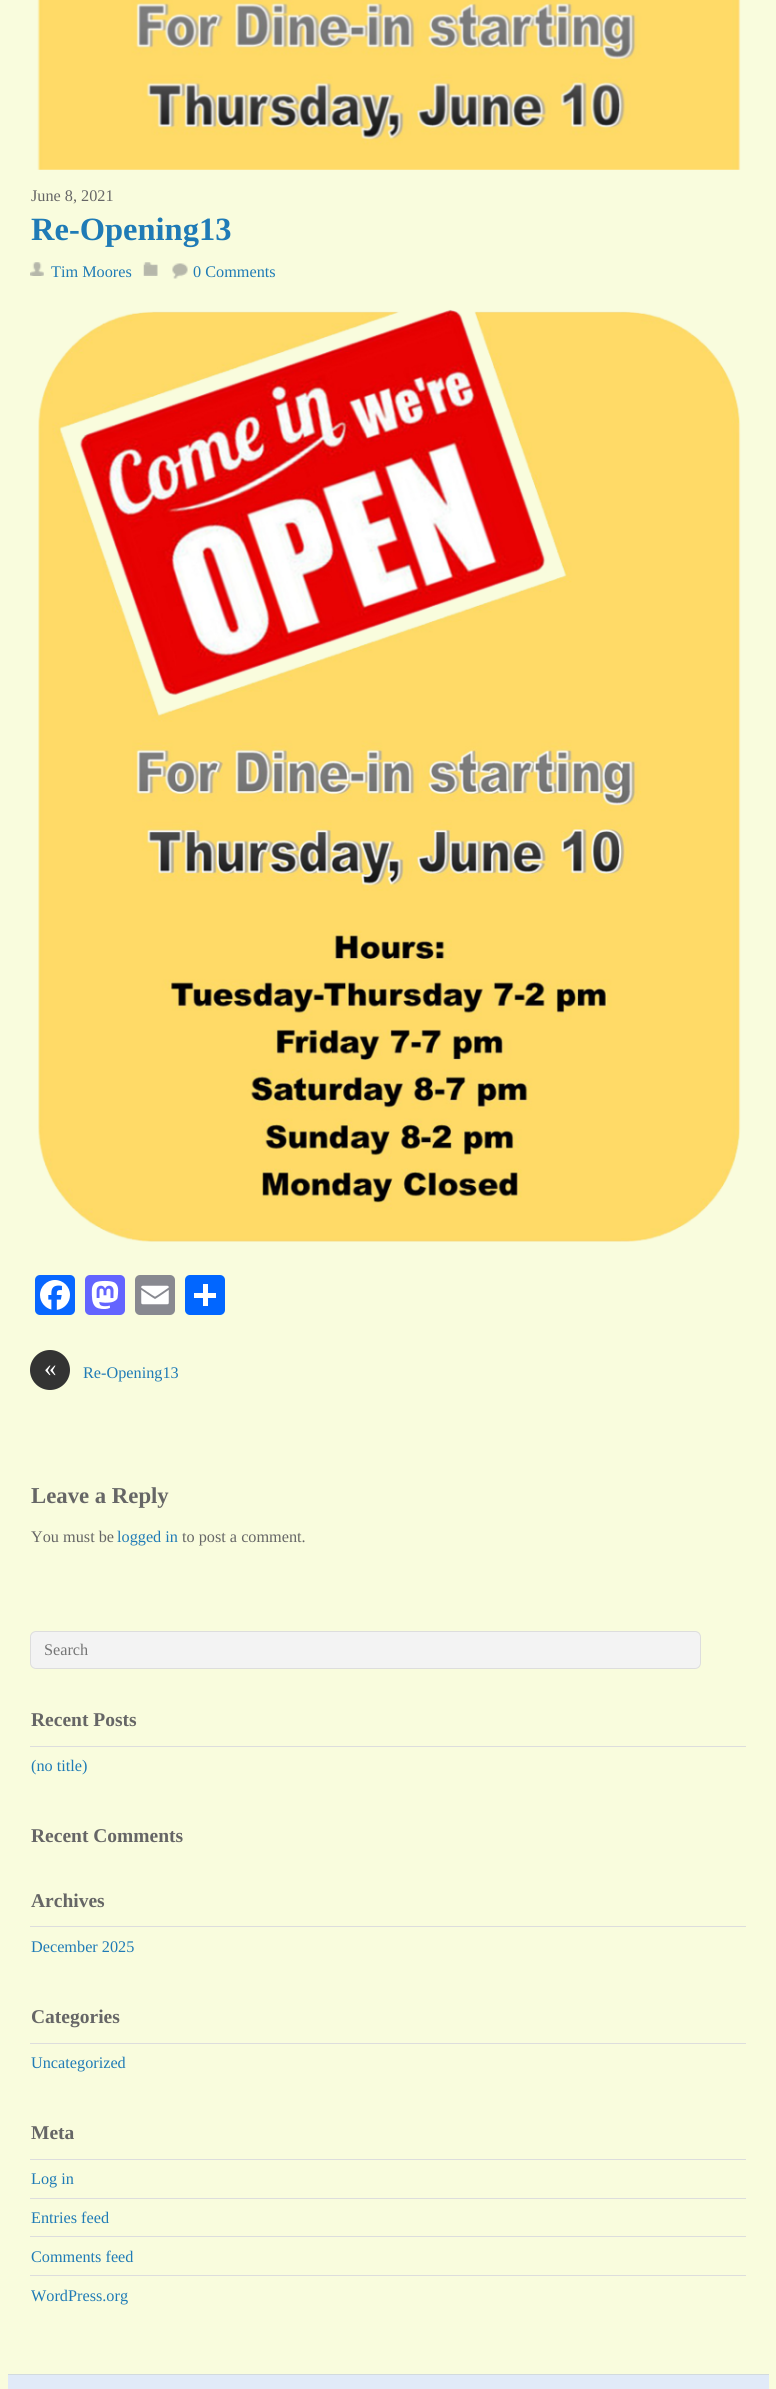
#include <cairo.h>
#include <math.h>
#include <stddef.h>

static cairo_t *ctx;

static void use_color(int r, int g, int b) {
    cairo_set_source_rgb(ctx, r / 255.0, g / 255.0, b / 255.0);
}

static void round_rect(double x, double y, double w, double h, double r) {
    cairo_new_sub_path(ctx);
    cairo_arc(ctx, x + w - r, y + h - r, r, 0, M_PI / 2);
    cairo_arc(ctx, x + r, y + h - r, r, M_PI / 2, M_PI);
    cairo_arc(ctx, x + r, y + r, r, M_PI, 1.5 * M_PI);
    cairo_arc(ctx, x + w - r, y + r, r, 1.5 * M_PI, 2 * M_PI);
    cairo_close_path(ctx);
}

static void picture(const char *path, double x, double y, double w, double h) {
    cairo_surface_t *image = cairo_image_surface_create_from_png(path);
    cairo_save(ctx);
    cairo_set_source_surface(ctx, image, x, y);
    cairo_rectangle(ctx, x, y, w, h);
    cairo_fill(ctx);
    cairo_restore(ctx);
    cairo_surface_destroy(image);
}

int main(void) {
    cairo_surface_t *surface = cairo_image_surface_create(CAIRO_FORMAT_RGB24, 776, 2389);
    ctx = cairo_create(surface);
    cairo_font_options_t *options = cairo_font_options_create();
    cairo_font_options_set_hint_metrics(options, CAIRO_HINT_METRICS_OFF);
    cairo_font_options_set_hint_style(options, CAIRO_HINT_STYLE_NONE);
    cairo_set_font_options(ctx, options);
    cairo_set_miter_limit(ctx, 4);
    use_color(249, 252, 221);
    cairo_paint(ctx);
    picture("img1.png", 37, 0, 704, 170);
    cairo_select_font_face(ctx, "Liberation Serif", CAIRO_FONT_SLANT_NORMAL, CAIRO_FONT_WEIGHT_NORMAL);
    cairo_set_font_size(ctx, 16.25);
    use_color(102, 102, 102);
    cairo_move_to(ctx, 31, 201);
    cairo_show_text(ctx, "June 8, 2021");
    cairo_select_font_face(ctx, "Liberation Serif", CAIRO_FONT_SLANT_NORMAL, CAIRO_FONT_WEIGHT_BOLD);
    cairo_set_font_size(ctx, 32.5);
    use_color(31, 123, 182);
    cairo_move_to(ctx, 31, 240);
    cairo_show_text(ctx, "Re-Opening13");
    picture("img2.png", 30, 262, 14, 14);
    cairo_select_font_face(ctx, "Liberation Serif", CAIRO_FONT_SLANT_NORMAL, CAIRO_FONT_WEIGHT_NORMAL);
    cairo_set_font_size(ctx, 16.25);
    cairo_move_to(ctx, 51, 277);
    cairo_show_text(ctx, "Tim Moores");
    picture("img3.png", 143, 262, 15, 14);
    picture("img4.png", 172, 263, 16, 16);
    cairo_move_to(ctx, 193, 277);
    cairo_show_text(ctx, "0 Comments");
    picture("img5.png", 38, 309, 703, 933);
    use_color(8, 102, 255);
    round_rect(35, 1275, 40, 40, 5);
    cairo_fill(ctx);
    picture("img6.png", 40, 1280, 30, 30);
    use_color(99, 100, 255);
    round_rect(85, 1275, 40, 40, 5);
    cairo_fill(ctx);
    picture("img7.png", 91, 1280, 28, 29);
    use_color(136, 137, 144);
    round_rect(135, 1275, 40, 40, 5);
    cairo_fill(ctx);
    picture("img8.png", 141, 1285, 28, 20);
    use_color(1, 102, 255);
    round_rect(185, 1275, 40, 40, 5);
    cairo_fill(ctx);
    use_color(255, 255, 255);
    cairo_rectangle(ctx, 203, 1284, 5, 22);
    cairo_fill(ctx);
    cairo_rectangle(ctx, 194, 1293, 22, 5);
    cairo_fill(ctx);
    use_color(51, 51, 51);
    cairo_arc(ctx, 50, 1370, 20, 0, 2 * M_PI);
    cairo_fill(ctx);
    cairo_set_font_size(ctx, 25);
    use_color(255, 255, 255);
    cairo_move_to(ctx, 44, 1376);
    cairo_show_text(ctx, "«");
    cairo_set_font_size(ctx, 16.25);
    use_color(31, 123, 182);
    cairo_move_to(ctx, 83, 1378);
    cairo_show_text(ctx, "Re-Opening13");
    cairo_select_font_face(ctx, "Liberation Serif", CAIRO_FONT_SLANT_NORMAL, CAIRO_FONT_WEIGHT_BOLD);
    cairo_set_font_size(ctx, 22.75);
    use_color(102, 102, 102);
    cairo_move_to(ctx, 31, 1503);
    cairo_show_text(ctx, "Leave a Reply");
    cairo_select_font_face(ctx, "Liberation Serif", CAIRO_FONT_SLANT_NORMAL, CAIRO_FONT_WEIGHT_NORMAL);
    cairo_set_font_size(ctx, 16.25);
    cairo_move_to(ctx, 31, 1542);
    cairo_show_text(ctx, "You must be");
    use_color(31, 123, 182);
    cairo_move_to(ctx, 117, 1542);
    cairo_show_text(ctx, "logged in");
    use_color(102, 102, 102);
    cairo_move_to(ctx, 182, 1542);
    cairo_show_text(ctx, "to post a comment.");
    use_color(243, 243, 243);
    round_rect(30.5, 1631.5, 670, 37, 5.5);
    cairo_fill_preserve(ctx);
    use_color(221, 221, 221);
    cairo_set_line_width(ctx, 1);
    cairo_stroke(ctx);
    use_color(117, 117, 117);
    cairo_move_to(ctx, 44, 1655);
    cairo_show_text(ctx, "Search");
    cairo_select_font_face(ctx, "Liberation Serif", CAIRO_FONT_SLANT_NORMAL, CAIRO_FONT_WEIGHT_BOLD);
    cairo_set_font_size(ctx, 19.5);
    use_color(102, 102, 102);
    cairo_move_to(ctx, 31, 1726);
    cairo_show_text(ctx, "Recent Posts");
    use_color(221, 221, 221);
    cairo_rectangle(ctx, 30, 1746, 716, 1);
    cairo_fill(ctx);
    cairo_select_font_face(ctx, "Liberation Serif", CAIRO_FONT_SLANT_NORMAL, CAIRO_FONT_WEIGHT_NORMAL);
    cairo_set_font_size(ctx, 16.25);
    use_color(31, 123, 182);
    cairo_move_to(ctx, 31, 1771);
    cairo_show_text(ctx, "(no title)");
    cairo_select_font_face(ctx, "Liberation Serif", CAIRO_FONT_SLANT_NORMAL, CAIRO_FONT_WEIGHT_BOLD);
    cairo_set_font_size(ctx, 19.5);
    use_color(102, 102, 102);
    cairo_move_to(ctx, 31, 1842);
    cairo_show_text(ctx, "Recent Comments");
    cairo_move_to(ctx, 31, 1907);
    cairo_show_text(ctx, "Archives");
    use_color(221, 221, 221);
    cairo_rectangle(ctx, 30, 1926, 716, 1);
    cairo_fill(ctx);
    cairo_select_font_face(ctx, "Liberation Serif", CAIRO_FONT_SLANT_NORMAL, CAIRO_FONT_WEIGHT_NORMAL);
    cairo_set_font_size(ctx, 16.25);
    use_color(31, 123, 182);
    cairo_move_to(ctx, 31, 1952);
    cairo_show_text(ctx, "December 2025");
    cairo_select_font_face(ctx, "Liberation Serif", CAIRO_FONT_SLANT_NORMAL, CAIRO_FONT_WEIGHT_BOLD);
    cairo_set_font_size(ctx, 19.5);
    use_color(102, 102, 102);
    cairo_move_to(ctx, 31, 2023);
    cairo_show_text(ctx, "Categories");
    use_color(221, 221, 221);
    cairo_rectangle(ctx, 30, 2043, 716, 1);
    cairo_fill(ctx);
    cairo_select_font_face(ctx, "Liberation Serif", CAIRO_FONT_SLANT_NORMAL, CAIRO_FONT_WEIGHT_NORMAL);
    cairo_set_font_size(ctx, 16.25);
    use_color(31, 123, 182);
    cairo_move_to(ctx, 31, 2068);
    cairo_show_text(ctx, "Uncategorized");
    cairo_select_font_face(ctx, "Liberation Serif", CAIRO_FONT_SLANT_NORMAL, CAIRO_FONT_WEIGHT_BOLD);
    cairo_set_font_size(ctx, 19.5);
    use_color(102, 102, 102);
    cairo_move_to(ctx, 31, 2139);
    cairo_show_text(ctx, "Meta");
    use_color(221, 221, 221);
    cairo_rectangle(ctx, 30, 2159, 716, 1);
    cairo_fill(ctx);
    cairo_select_font_face(ctx, "Liberation Serif", CAIRO_FONT_SLANT_NORMAL, CAIRO_FONT_WEIGHT_NORMAL);
    cairo_set_font_size(ctx, 16.25);
    use_color(31, 123, 182);
    cairo_move_to(ctx, 31, 2184);
    cairo_show_text(ctx, "Log in");
    use_color(221, 221, 221);
    cairo_rectangle(ctx, 30, 2198, 716, 1);
    cairo_fill(ctx);
    use_color(31, 123, 182);
    cairo_move_to(ctx, 31, 2223);
    cairo_show_text(ctx, "Entries feed");
    use_color(221, 221, 221);
    cairo_rectangle(ctx, 30, 2236, 716, 1);
    cairo_fill(ctx);
    use_color(31, 123, 182);
    cairo_move_to(ctx, 31, 2262);
    cairo_show_text(ctx, "Comments feed");
    use_color(221, 221, 221);
    cairo_rectangle(ctx, 30, 2275, 716, 1);
    cairo_fill(ctx);
    use_color(31, 123, 182);
    cairo_move_to(ctx, 31, 2301);
    cairo_show_text(ctx, "WordPress.org");
    use_color(225, 234, 248);
    cairo_rectangle(ctx, 8, 2375, 761, 14);
    cairo_fill(ctx);
    use_color(210, 218, 221);
    cairo_rectangle(ctx, 8, 2374, 761, 1);
    cairo_fill(ctx);
    cairo_surface_write_to_png(surface, "result.png");
    cairo_font_options_destroy(options);
    cairo_destroy(ctx);
    cairo_surface_destroy(surface);
    return 0;
}
